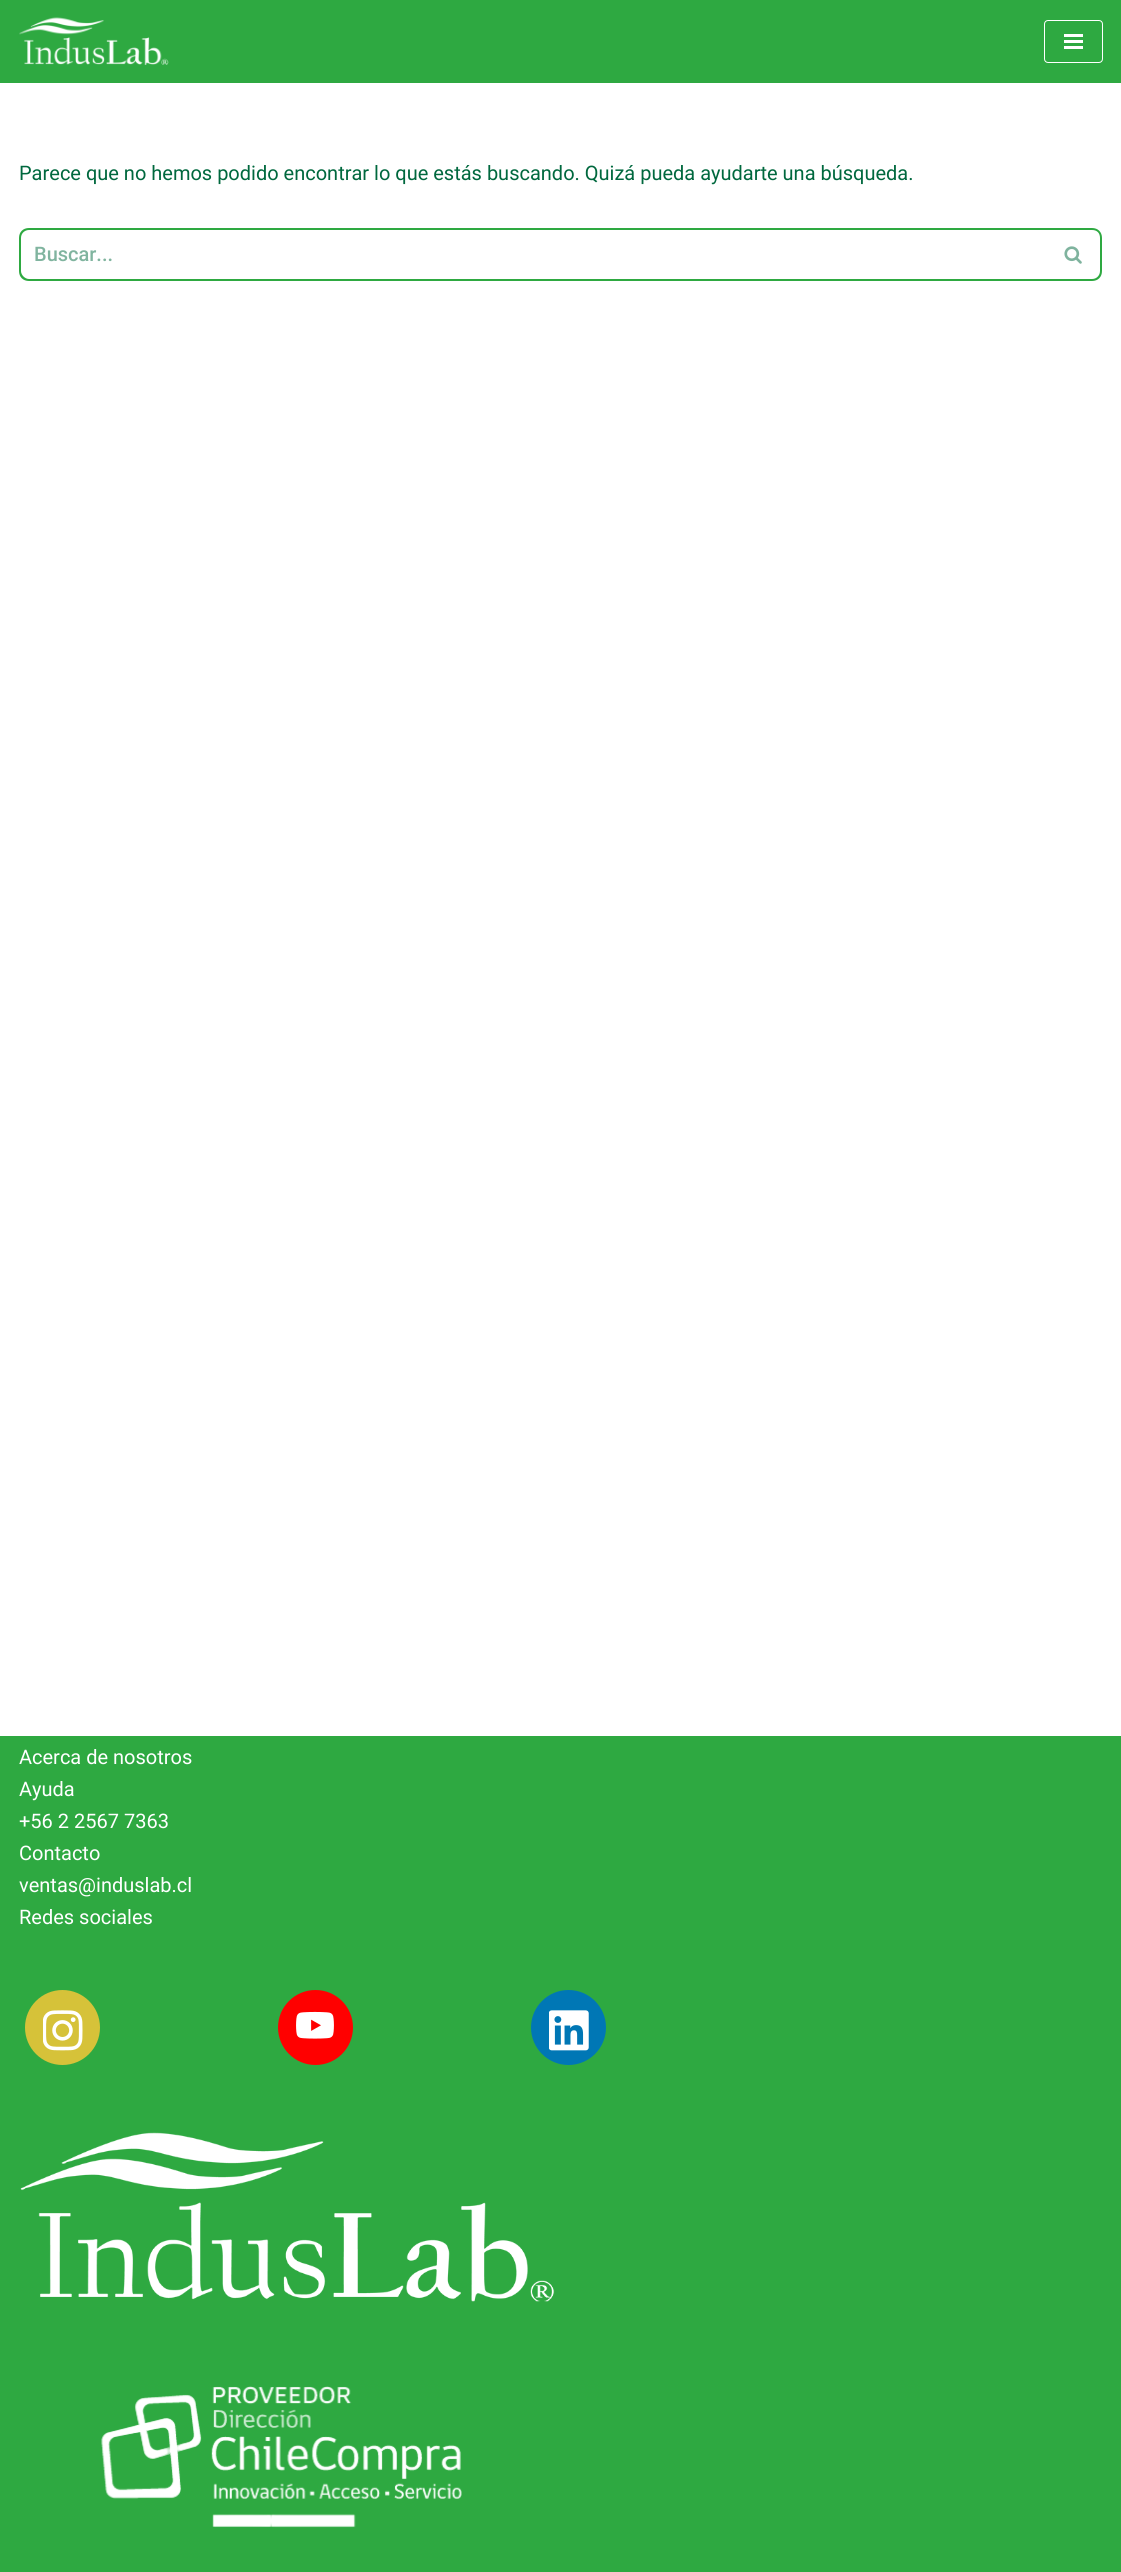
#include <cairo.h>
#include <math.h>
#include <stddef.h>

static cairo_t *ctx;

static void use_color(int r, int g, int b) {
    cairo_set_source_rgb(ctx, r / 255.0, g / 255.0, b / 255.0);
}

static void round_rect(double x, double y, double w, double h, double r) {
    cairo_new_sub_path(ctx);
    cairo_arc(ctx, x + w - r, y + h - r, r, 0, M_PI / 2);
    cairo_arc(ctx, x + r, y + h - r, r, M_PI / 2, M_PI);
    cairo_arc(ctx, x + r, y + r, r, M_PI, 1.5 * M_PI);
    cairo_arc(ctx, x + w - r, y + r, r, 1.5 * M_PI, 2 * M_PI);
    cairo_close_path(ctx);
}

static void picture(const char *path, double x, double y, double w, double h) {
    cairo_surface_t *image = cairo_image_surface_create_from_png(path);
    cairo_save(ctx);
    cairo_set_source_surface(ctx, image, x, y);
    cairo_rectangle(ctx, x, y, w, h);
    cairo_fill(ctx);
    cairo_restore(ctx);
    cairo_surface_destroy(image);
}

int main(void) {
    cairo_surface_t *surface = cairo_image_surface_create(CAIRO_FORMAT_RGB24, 1121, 2572);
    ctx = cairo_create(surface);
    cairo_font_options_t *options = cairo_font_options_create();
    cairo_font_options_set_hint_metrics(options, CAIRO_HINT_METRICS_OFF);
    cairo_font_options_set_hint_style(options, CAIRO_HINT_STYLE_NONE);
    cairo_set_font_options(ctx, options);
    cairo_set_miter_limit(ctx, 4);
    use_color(255, 255, 255);
    cairo_paint(ctx);
    use_color(46, 169, 65);
    cairo_rectangle(ctx, 0, 0, 1121, 83);
    cairo_fill(ctx);
    picture("img1.png", 19, 17, 150, 48);
    round_rect(1044.5, 20.5, 58, 42, 3.5);
    use_color(255, 255, 255);
    cairo_set_line_width(ctx, 1);
    cairo_stroke(ctx);
    cairo_rectangle(ctx, 1064, 34, 19, 3);
    cairo_fill(ctx);
    cairo_rectangle(ctx, 1064, 40, 19, 3);
    cairo_fill(ctx);
    cairo_rectangle(ctx, 1064, 46, 19, 3);
    cairo_fill(ctx);
    cairo_select_font_face(ctx, "Roboto", CAIRO_FONT_SLANT_NORMAL, CAIRO_FONT_WEIGHT_NORMAL);
    cairo_set_font_size(ctx, 20);
    use_color(0, 104, 62);
    cairo_move_to(ctx, 19, 180);
    cairo_show_text(ctx, "Parece que no hemos podido encontrar lo que estás buscando. Quizá pueda ayudarte una búsqueda.");
    use_color(46, 169, 65);
    cairo_set_fill_rule(ctx, CAIRO_FILL_RULE_EVEN_ODD);
    cairo_new_path(ctx);
    cairo_move_to(ctx, 29, 228);
    cairo_line_to(ctx, 1046, 228);
    cairo_line_to(ctx, 1046, 281);
    cairo_line_to(ctx, 29, 281);
    cairo_curve_to(ctx, 23, 281, 19, 277, 19, 271);
    cairo_line_to(ctx, 19, 238);
    cairo_curve_to(ctx, 19, 232, 23, 228, 29, 228);
    cairo_close_path(ctx);
    cairo_move_to(ctx, 29, 230);
    cairo_line_to(ctx, 1046, 230);
    cairo_line_to(ctx, 1046, 279);
    cairo_line_to(ctx, 29, 279);
    cairo_curve_to(ctx, 25, 279, 21, 275, 21, 271);
    cairo_line_to(ctx, 21, 238);
    cairo_curve_to(ctx, 21, 233, 25, 230, 29, 230);
    cairo_close_path(ctx);
    cairo_fill(ctx);
    cairo_select_font_face(ctx, "Roboto Medium", CAIRO_FONT_SLANT_NORMAL, CAIRO_FONT_WEIGHT_NORMAL);
    use_color(128, 180, 159);
    cairo_move_to(ctx, 34, 261);
    cairo_show_text(ctx, "Buscar...");
    use_color(46, 169, 65);
    cairo_new_path(ctx);
    cairo_move_to(ctx, 1046, 228);
    cairo_line_to(ctx, 1092, 228);
    cairo_curve_to(ctx, 1098, 228, 1102, 232, 1102, 238);
    cairo_line_to(ctx, 1102, 271);
    cairo_curve_to(ctx, 1102, 277, 1098, 281, 1092, 281);
    cairo_line_to(ctx, 1046, 281);
    cairo_close_path(ctx);
    cairo_move_to(ctx, 1046, 230);
    cairo_line_to(ctx, 1092, 230);
    cairo_curve_to(ctx, 1097, 230, 1100, 233, 1100, 238);
    cairo_line_to(ctx, 1100, 271);
    cairo_curve_to(ctx, 1100, 275, 1097, 279, 1092, 279);
    cairo_line_to(ctx, 1046, 279);
    cairo_close_path(ctx);
    cairo_fill(ctx);
    picture("img2.png", 1064, 246, 18, 18);
    cairo_rectangle(ctx, 0, 1736, 1121, 836);
    cairo_fill(ctx);
    cairo_select_font_face(ctx, "Roboto", CAIRO_FONT_SLANT_NORMAL, CAIRO_FONT_WEIGHT_NORMAL);
    use_color(255, 255, 255);
    cairo_move_to(ctx, 19, 1764);
    cairo_show_text(ctx, "Acerca de nosotros");
    cairo_move_to(ctx, 19, 1796);
    cairo_show_text(ctx, "Ayuda");
    cairo_move_to(ctx, 19, 1828);
    cairo_show_text(ctx, "+56 2 2567 7363");
    cairo_move_to(ctx, 19, 1860);
    cairo_show_text(ctx, "Contacto");
    cairo_move_to(ctx, 19, 1892);
    cairo_show_text(ctx, "ventas@induslab.cl");
    cairo_move_to(ctx, 19, 1924);
    cairo_show_text(ctx, "Redes sociales");
    use_color(214, 194, 57);
    cairo_new_path(ctx);
    cairo_arc(ctx, 62.5, 2027.5, 37.5, 0, 2 * M_PI);
    cairo_fill(ctx);
    picture("img3.png", 43, 2010, 40, 41);
    use_color(255, 0, 0);
    cairo_arc(ctx, 315.5, 2027.5, 37.5, 0, 2 * M_PI);
    cairo_fill(ctx);
    picture("img4.png", 296, 2011, 38, 28);
    use_color(0, 119, 181);
    cairo_arc(ctx, 568.5, 2027.5, 37.5, 0, 2 * M_PI);
    cairo_fill(ctx);
    picture("img5.png", 549, 2010, 40, 41);
    picture("img6.png", 20, 2132, 535, 170);
    picture("img7.png", 101, 2386, 361, 142);
    cairo_surface_write_to_png(surface, "result.png");
    cairo_font_options_destroy(options);
    cairo_destroy(ctx);
    cairo_surface_destroy(surface);
    return 0;
}
